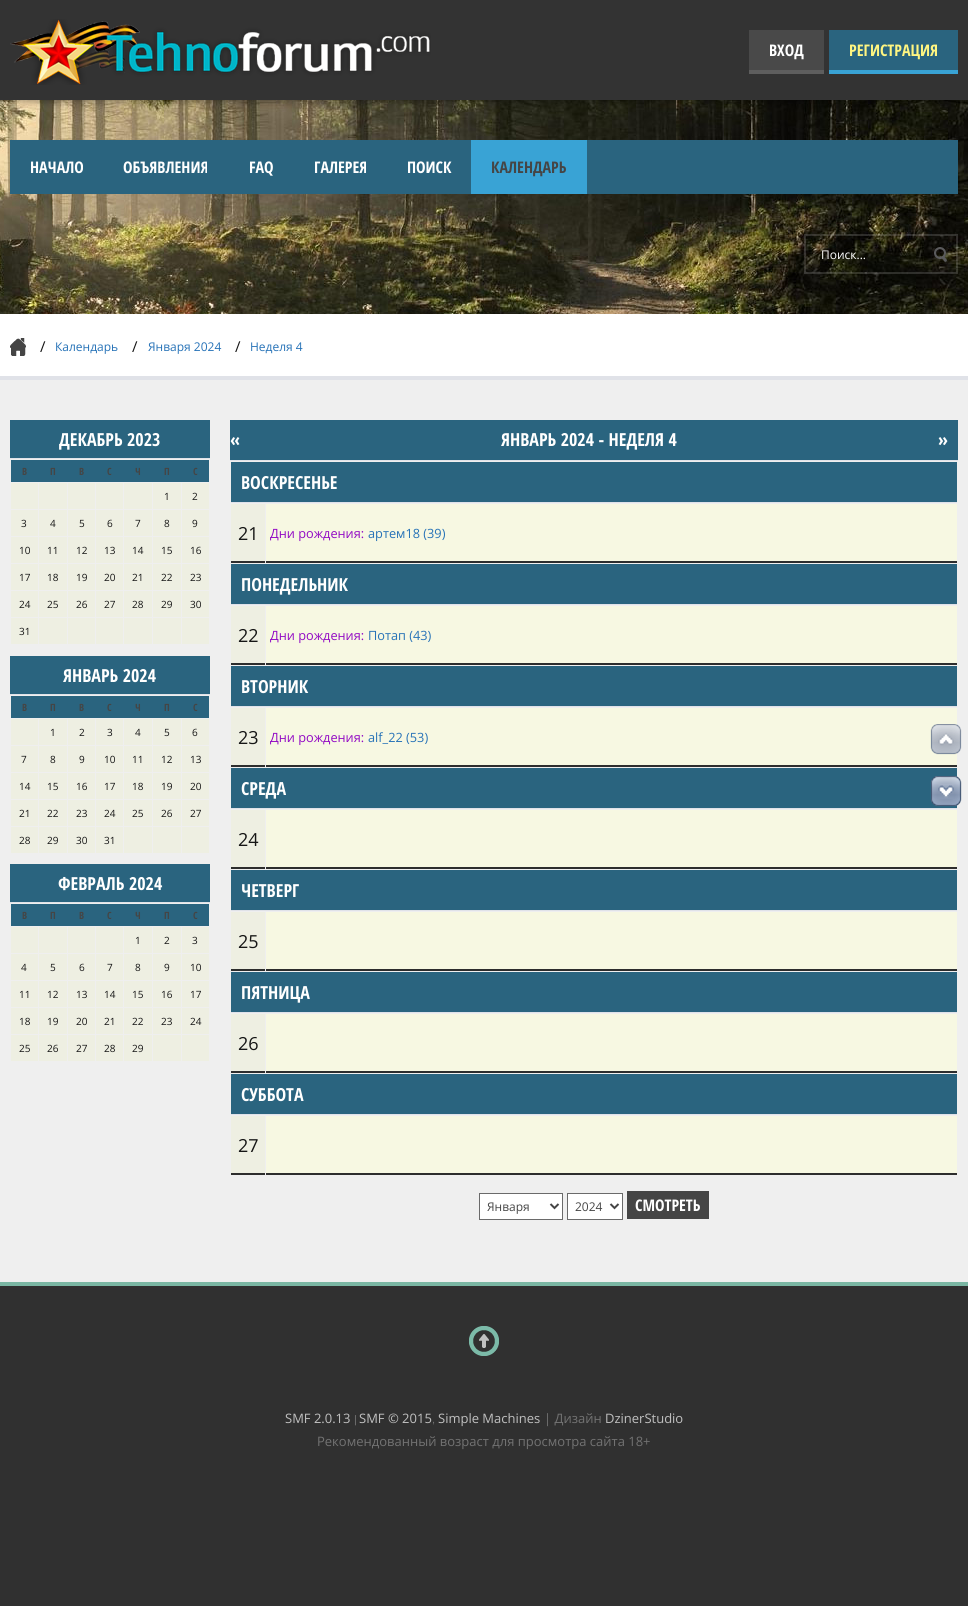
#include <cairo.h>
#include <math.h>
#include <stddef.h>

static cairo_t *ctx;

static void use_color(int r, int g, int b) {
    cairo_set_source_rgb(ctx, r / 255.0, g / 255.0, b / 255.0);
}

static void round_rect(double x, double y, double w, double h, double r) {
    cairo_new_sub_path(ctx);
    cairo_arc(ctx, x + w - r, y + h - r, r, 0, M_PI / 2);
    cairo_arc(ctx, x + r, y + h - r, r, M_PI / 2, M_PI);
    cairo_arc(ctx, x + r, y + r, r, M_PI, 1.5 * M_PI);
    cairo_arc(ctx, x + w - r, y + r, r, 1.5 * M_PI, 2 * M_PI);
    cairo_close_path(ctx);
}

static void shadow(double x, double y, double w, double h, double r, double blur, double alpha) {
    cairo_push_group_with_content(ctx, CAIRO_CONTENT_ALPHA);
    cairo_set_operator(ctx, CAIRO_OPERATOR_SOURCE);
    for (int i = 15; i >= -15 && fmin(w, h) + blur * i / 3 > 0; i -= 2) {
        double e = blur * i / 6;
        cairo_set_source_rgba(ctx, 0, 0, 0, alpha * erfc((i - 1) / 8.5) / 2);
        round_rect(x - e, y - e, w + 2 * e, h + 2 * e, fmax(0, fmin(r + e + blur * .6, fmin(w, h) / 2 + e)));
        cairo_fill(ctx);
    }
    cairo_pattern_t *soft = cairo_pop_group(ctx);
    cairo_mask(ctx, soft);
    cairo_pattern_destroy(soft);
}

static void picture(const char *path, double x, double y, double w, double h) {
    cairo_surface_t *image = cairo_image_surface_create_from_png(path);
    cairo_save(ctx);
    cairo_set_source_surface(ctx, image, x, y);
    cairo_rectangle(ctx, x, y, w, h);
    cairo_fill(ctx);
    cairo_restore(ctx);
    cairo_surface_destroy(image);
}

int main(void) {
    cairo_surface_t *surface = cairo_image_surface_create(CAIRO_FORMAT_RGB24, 968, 1606);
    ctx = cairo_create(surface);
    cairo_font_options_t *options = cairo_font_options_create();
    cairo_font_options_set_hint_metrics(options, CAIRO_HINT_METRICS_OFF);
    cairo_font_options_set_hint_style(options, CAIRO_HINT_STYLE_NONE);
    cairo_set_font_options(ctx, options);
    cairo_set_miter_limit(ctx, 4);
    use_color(48, 48, 48);
    cairo_paint(ctx);
    picture("img1.png", 0, 100, 968, 214);
    use_color(0, 0, 0);
    shadow(0, 0, 968, 100, 0, 5, 0.5);
    use_color(51, 51, 51);
    cairo_rectangle(ctx, 0, 0, 968, 100);
    cairo_fill(ctx);
    picture("img2.png", 10, 19, 421, 66);
    use_color(73, 73, 73);
    cairo_rectangle(ctx, 749, 30, 75, 40);
    cairo_fill(ctx);
    use_color(94, 94, 94);
    cairo_rectangle(ctx, 749, 70, 75, 4);
    cairo_fill(ctx);
    cairo_select_font_face(ctx, "Open Sans Condensed", CAIRO_FONT_SLANT_NORMAL, CAIRO_FONT_WEIGHT_BOLD);
    cairo_set_font_size(ctx, 16);
    use_color(255, 255, 255);
    cairo_move_to(ctx, 769, 56);
    cairo_show_text(ctx, "ВХОД");
    use_color(42, 100, 127);
    cairo_rectangle(ctx, 829, 30, 129, 40);
    cairo_fill(ctx);
    use_color(57, 163, 213);
    cairo_rectangle(ctx, 829, 70, 129, 4);
    cairo_fill(ctx);
    use_color(255, 245, 129);
    cairo_move_to(ctx, 849, 56);
    cairo_show_text(ctx, "РЕГИСТРАЦИЯ");
    use_color(42, 100, 127);
    cairo_rectangle(ctx, 10, 140, 948, 54);
    cairo_fill(ctx);
    use_color(255, 255, 255);
    cairo_move_to(ctx, 30, 173);
    cairo_show_text(ctx, "НАЧАЛО");
    cairo_move_to(ctx, 123, 173);
    cairo_show_text(ctx, "ОБЪЯВЛЕНИЯ");
    cairo_move_to(ctx, 249, 173);
    cairo_show_text(ctx, "FAQ");
    cairo_move_to(ctx, 314, 173);
    cairo_show_text(ctx, "ГАЛЕРЕЯ");
    cairo_move_to(ctx, 407, 173);
    cairo_show_text(ctx, "ПОИСК");
    use_color(57, 163, 213);
    cairo_rectangle(ctx, 471, 140, 116, 54);
    cairo_fill(ctx);
    use_color(69, 69, 69);
    cairo_move_to(ctx, 491, 173);
    cairo_show_text(ctx, "КАЛЕНДАРЬ");
    cairo_rectangle(ctx, 805, 235, 152, 38);
    cairo_set_source_rgba(ctx, 1, 1, 1, 0.15);
    cairo_stroke(ctx);
    cairo_select_font_face(ctx, "Open Sans", CAIRO_FONT_SLANT_NORMAL, CAIRO_FONT_WEIGHT_NORMAL);
    cairo_set_font_size(ctx, 12);
    use_color(255, 255, 255);
    cairo_move_to(ctx, 821, 259);
    cairo_show_text(ctx, "Поиск...");
    picture("img3.png", 934, 247, 14, 16);
    cairo_rectangle(ctx, 0, 314, 968, 62);
    cairo_fill(ctx);
    use_color(224, 226, 232);
    cairo_rectangle(ctx, 0, 376, 968, 4);
    cairo_fill(ctx);
    picture("img4.png", 10, 338, 16, 18);
    cairo_set_font_size(ctx, 15);
    use_color(22, 22, 22);
    cairo_move_to(ctx, 40, 352);
    cairo_show_text(ctx, "/");
    cairo_set_font_size(ctx, 12);
    use_color(38, 114, 183);
    cairo_move_to(ctx, 55, 351);
    cairo_show_text(ctx, "Календарь");
    cairo_set_font_size(ctx, 15);
    use_color(22, 22, 22);
    cairo_move_to(ctx, 132, 352);
    cairo_show_text(ctx, "/");
    cairo_set_font_size(ctx, 12);
    use_color(38, 114, 183);
    cairo_move_to(ctx, 148, 351);
    cairo_show_text(ctx, "Января 2024");
    cairo_set_font_size(ctx, 15);
    use_color(22, 22, 22);
    cairo_move_to(ctx, 235, 352);
    cairo_show_text(ctx, "/");
    cairo_set_font_size(ctx, 12);
    use_color(38, 114, 183);
    cairo_move_to(ctx, 250, 351);
    cairo_show_text(ctx, "Неделя 4");
    use_color(239, 239, 239);
    cairo_rectangle(ctx, 0, 380, 968, 902);
    cairo_fill(ctx);
    use_color(224, 226, 232);
    cairo_rectangle(ctx, 10, 458, 200, 1);
    cairo_fill(ctx);
    use_color(42, 100, 127);
    cairo_rectangle(ctx, 10, 420, 200, 38);
    cairo_fill(ctx);
    cairo_select_font_face(ctx, "Open Sans Condensed", CAIRO_FONT_SLANT_NORMAL, CAIRO_FONT_WEIGHT_BOLD);
    cairo_set_font_size(ctx, 18);
    use_color(255, 255, 255);
    cairo_move_to(ctx, 59, 446);
    cairo_show_text(ctx, "ДЕКАБРЬ 2023");
    use_color(42, 100, 127);
    cairo_rectangle(ctx, 11, 460, 198, 22);
    cairo_fill(ctx);
    cairo_set_font_size(ctx, 10);
    use_color(69, 69, 69);
    cairo_move_to(ctx, 22, 475);
    cairo_show_text(ctx, "В");
    cairo_move_to(ctx, 50, 475);
    cairo_show_text(ctx, "П");
    cairo_move_to(ctx, 79, 475);
    cairo_show_text(ctx, "В");
    cairo_move_to(ctx, 107, 475);
    cairo_show_text(ctx, "С");
    cairo_move_to(ctx, 135, 475);
    cairo_show_text(ctx, "Ч");
    cairo_move_to(ctx, 164, 475);
    cairo_show_text(ctx, "П");
    cairo_move_to(ctx, 193, 475);
    cairo_show_text(ctx, "С");
    use_color(238, 239, 226);
    cairo_rectangle(ctx, 11, 483, 27, 26);
    cairo_fill(ctx);
    cairo_rectangle(ctx, 39, 483, 28, 26);
    cairo_fill(ctx);
    cairo_rectangle(ctx, 68, 483, 27, 26);
    cairo_fill(ctx);
    cairo_rectangle(ctx, 96, 483, 27, 26);
    cairo_fill(ctx);
    cairo_rectangle(ctx, 124, 483, 28, 26);
    cairo_fill(ctx);
    cairo_rectangle(ctx, 153, 483, 28, 26);
    cairo_fill(ctx);
    cairo_select_font_face(ctx, "Open Sans", CAIRO_FONT_SLANT_NORMAL, CAIRO_FONT_WEIGHT_NORMAL);
    use_color(22, 22, 22);
    cairo_move_to(ctx, 164, 500);
    cairo_show_text(ctx, "1");
    use_color(238, 239, 226);
    cairo_rectangle(ctx, 182, 483, 27, 26);
    cairo_fill(ctx);
    use_color(22, 22, 22);
    cairo_move_to(ctx, 192, 500);
    cairo_show_text(ctx, "2");
    use_color(238, 239, 226);
    cairo_rectangle(ctx, 11, 510, 27, 26);
    cairo_fill(ctx);
    use_color(22, 22, 22);
    cairo_move_to(ctx, 21, 527);
    cairo_show_text(ctx, "3");
    use_color(238, 239, 226);
    cairo_rectangle(ctx, 39, 510, 28, 26);
    cairo_fill(ctx);
    use_color(22, 22, 22);
    cairo_move_to(ctx, 50, 527);
    cairo_show_text(ctx, "4");
    use_color(238, 239, 226);
    cairo_rectangle(ctx, 68, 510, 27, 26);
    cairo_fill(ctx);
    use_color(22, 22, 22);
    cairo_move_to(ctx, 79, 527);
    cairo_show_text(ctx, "5");
    use_color(238, 239, 226);
    cairo_rectangle(ctx, 96, 510, 27, 26);
    cairo_fill(ctx);
    use_color(22, 22, 22);
    cairo_move_to(ctx, 107, 527);
    cairo_show_text(ctx, "6");
    use_color(238, 239, 226);
    cairo_rectangle(ctx, 124, 510, 28, 26);
    cairo_fill(ctx);
    use_color(22, 22, 22);
    cairo_move_to(ctx, 135, 527);
    cairo_show_text(ctx, "7");
    use_color(238, 239, 226);
    cairo_rectangle(ctx, 153, 510, 28, 26);
    cairo_fill(ctx);
    use_color(22, 22, 22);
    cairo_move_to(ctx, 164, 527);
    cairo_show_text(ctx, "8");
    use_color(238, 239, 226);
    cairo_rectangle(ctx, 182, 510, 27, 26);
    cairo_fill(ctx);
    use_color(22, 22, 22);
    cairo_move_to(ctx, 192, 527);
    cairo_show_text(ctx, "9");
    use_color(238, 239, 226);
    cairo_rectangle(ctx, 11, 537, 27, 26);
    cairo_fill(ctx);
    use_color(22, 22, 22);
    cairo_move_to(ctx, 19, 554);
    cairo_show_text(ctx, "10");
    use_color(238, 239, 226);
    cairo_rectangle(ctx, 39, 537, 28, 26);
    cairo_fill(ctx);
    use_color(22, 22, 22);
    cairo_move_to(ctx, 47, 554);
    cairo_show_text(ctx, "11");
    use_color(238, 239, 226);
    cairo_rectangle(ctx, 68, 537, 27, 26);
    cairo_fill(ctx);
    use_color(22, 22, 22);
    cairo_move_to(ctx, 76, 554);
    cairo_show_text(ctx, "12");
    use_color(238, 239, 226);
    cairo_rectangle(ctx, 96, 537, 27, 26);
    cairo_fill(ctx);
    use_color(22, 22, 22);
    cairo_move_to(ctx, 104, 554);
    cairo_show_text(ctx, "13");
    use_color(238, 239, 226);
    cairo_rectangle(ctx, 124, 537, 28, 26);
    cairo_fill(ctx);
    use_color(22, 22, 22);
    cairo_move_to(ctx, 132, 554);
    cairo_show_text(ctx, "14");
    use_color(238, 239, 226);
    cairo_rectangle(ctx, 153, 537, 28, 26);
    cairo_fill(ctx);
    use_color(22, 22, 22);
    cairo_move_to(ctx, 161, 554);
    cairo_show_text(ctx, "15");
    use_color(238, 239, 226);
    cairo_rectangle(ctx, 182, 537, 27, 26);
    cairo_fill(ctx);
    use_color(22, 22, 22);
    cairo_move_to(ctx, 190, 554);
    cairo_show_text(ctx, "16");
    use_color(238, 239, 226);
    cairo_rectangle(ctx, 11, 564, 27, 26);
    cairo_fill(ctx);
    use_color(22, 22, 22);
    cairo_move_to(ctx, 19, 581);
    cairo_show_text(ctx, "17");
    use_color(238, 239, 226);
    cairo_rectangle(ctx, 39, 564, 28, 26);
    cairo_fill(ctx);
    use_color(22, 22, 22);
    cairo_move_to(ctx, 47, 581);
    cairo_show_text(ctx, "18");
    use_color(238, 239, 226);
    cairo_rectangle(ctx, 68, 564, 27, 26);
    cairo_fill(ctx);
    use_color(22, 22, 22);
    cairo_move_to(ctx, 76, 581);
    cairo_show_text(ctx, "19");
    use_color(238, 239, 226);
    cairo_rectangle(ctx, 96, 564, 27, 26);
    cairo_fill(ctx);
    use_color(22, 22, 22);
    cairo_move_to(ctx, 104, 581);
    cairo_show_text(ctx, "20");
    use_color(238, 239, 226);
    cairo_rectangle(ctx, 124, 564, 28, 26);
    cairo_fill(ctx);
    use_color(22, 22, 22);
    cairo_move_to(ctx, 132, 581);
    cairo_show_text(ctx, "21");
    use_color(238, 239, 226);
    cairo_rectangle(ctx, 153, 564, 28, 26);
    cairo_fill(ctx);
    use_color(22, 22, 22);
    cairo_move_to(ctx, 161, 581);
    cairo_show_text(ctx, "22");
    use_color(238, 239, 226);
    cairo_rectangle(ctx, 182, 564, 27, 26);
    cairo_fill(ctx);
    use_color(22, 22, 22);
    cairo_move_to(ctx, 190, 581);
    cairo_show_text(ctx, "23");
    use_color(238, 239, 226);
    cairo_rectangle(ctx, 11, 591, 27, 26);
    cairo_fill(ctx);
    use_color(22, 22, 22);
    cairo_move_to(ctx, 19, 608);
    cairo_show_text(ctx, "24");
    use_color(238, 239, 226);
    cairo_rectangle(ctx, 39, 591, 28, 26);
    cairo_fill(ctx);
    use_color(22, 22, 22);
    cairo_move_to(ctx, 47, 608);
    cairo_show_text(ctx, "25");
    use_color(238, 239, 226);
    cairo_rectangle(ctx, 68, 591, 27, 26);
    cairo_fill(ctx);
    use_color(22, 22, 22);
    cairo_move_to(ctx, 76, 608);
    cairo_show_text(ctx, "26");
    use_color(238, 239, 226);
    cairo_rectangle(ctx, 96, 591, 27, 26);
    cairo_fill(ctx);
    use_color(22, 22, 22);
    cairo_move_to(ctx, 104, 608);
    cairo_show_text(ctx, "27");
    use_color(238, 239, 226);
    cairo_rectangle(ctx, 124, 591, 28, 26);
    cairo_fill(ctx);
    use_color(22, 22, 22);
    cairo_move_to(ctx, 132, 608);
    cairo_show_text(ctx, "28");
    use_color(238, 239, 226);
    cairo_rectangle(ctx, 153, 591, 28, 26);
    cairo_fill(ctx);
    use_color(22, 22, 22);
    cairo_move_to(ctx, 161, 608);
    cairo_show_text(ctx, "29");
    use_color(238, 239, 226);
    cairo_rectangle(ctx, 182, 591, 27, 26);
    cairo_fill(ctx);
    use_color(22, 22, 22);
    cairo_move_to(ctx, 190, 608);
    cairo_show_text(ctx, "30");
    use_color(238, 239, 226);
    cairo_rectangle(ctx, 11, 618, 27, 26);
    cairo_fill(ctx);
    use_color(22, 22, 22);
    cairo_move_to(ctx, 19, 635);
    cairo_show_text(ctx, "31");
    use_color(238, 239, 226);
    cairo_rectangle(ctx, 39, 618, 28, 26);
    cairo_fill(ctx);
    cairo_rectangle(ctx, 68, 618, 27, 26);
    cairo_fill(ctx);
    cairo_rectangle(ctx, 96, 618, 27, 26);
    cairo_fill(ctx);
    cairo_rectangle(ctx, 124, 618, 28, 26);
    cairo_fill(ctx);
    cairo_rectangle(ctx, 153, 618, 28, 26);
    cairo_fill(ctx);
    cairo_rectangle(ctx, 182, 618, 27, 26);
    cairo_fill(ctx);
    use_color(224, 226, 232);
    cairo_rectangle(ctx, 10, 694, 200, 1);
    cairo_fill(ctx);
    use_color(42, 100, 127);
    cairo_rectangle(ctx, 10, 656, 200, 38);
    cairo_fill(ctx);
    cairo_select_font_face(ctx, "Open Sans Condensed", CAIRO_FONT_SLANT_NORMAL, CAIRO_FONT_WEIGHT_BOLD);
    cairo_set_font_size(ctx, 18);
    use_color(255, 255, 255);
    cairo_move_to(ctx, 63, 682);
    cairo_show_text(ctx, "ЯНВАРЬ 2024");
    use_color(42, 100, 127);
    cairo_rectangle(ctx, 11, 696, 198, 22);
    cairo_fill(ctx);
    cairo_set_font_size(ctx, 10);
    use_color(69, 69, 69);
    cairo_move_to(ctx, 22, 711);
    cairo_show_text(ctx, "В");
    cairo_move_to(ctx, 50, 711);
    cairo_show_text(ctx, "П");
    cairo_move_to(ctx, 79, 711);
    cairo_show_text(ctx, "В");
    cairo_move_to(ctx, 107, 711);
    cairo_show_text(ctx, "С");
    cairo_move_to(ctx, 135, 711);
    cairo_show_text(ctx, "Ч");
    cairo_move_to(ctx, 164, 711);
    cairo_show_text(ctx, "П");
    cairo_move_to(ctx, 193, 711);
    cairo_show_text(ctx, "С");
    use_color(238, 239, 226);
    cairo_rectangle(ctx, 11, 719, 27, 26);
    cairo_fill(ctx);
    cairo_rectangle(ctx, 39, 719, 28, 26);
    cairo_fill(ctx);
    cairo_select_font_face(ctx, "Open Sans", CAIRO_FONT_SLANT_NORMAL, CAIRO_FONT_WEIGHT_NORMAL);
    use_color(22, 22, 22);
    cairo_move_to(ctx, 50, 736);
    cairo_show_text(ctx, "1");
    use_color(238, 239, 226);
    cairo_rectangle(ctx, 68, 719, 27, 26);
    cairo_fill(ctx);
    use_color(22, 22, 22);
    cairo_move_to(ctx, 79, 736);
    cairo_show_text(ctx, "2");
    use_color(238, 239, 226);
    cairo_rectangle(ctx, 96, 719, 27, 26);
    cairo_fill(ctx);
    use_color(22, 22, 22);
    cairo_move_to(ctx, 107, 736);
    cairo_show_text(ctx, "3");
    use_color(238, 239, 226);
    cairo_rectangle(ctx, 124, 719, 28, 26);
    cairo_fill(ctx);
    use_color(22, 22, 22);
    cairo_move_to(ctx, 135, 736);
    cairo_show_text(ctx, "4");
    use_color(238, 239, 226);
    cairo_rectangle(ctx, 153, 719, 28, 26);
    cairo_fill(ctx);
    use_color(22, 22, 22);
    cairo_move_to(ctx, 164, 736);
    cairo_show_text(ctx, "5");
    use_color(238, 239, 226);
    cairo_rectangle(ctx, 182, 719, 27, 26);
    cairo_fill(ctx);
    use_color(22, 22, 22);
    cairo_move_to(ctx, 192, 736);
    cairo_show_text(ctx, "6");
    use_color(238, 239, 226);
    cairo_rectangle(ctx, 11, 746, 27, 26);
    cairo_fill(ctx);
    use_color(22, 22, 22);
    cairo_move_to(ctx, 21, 763);
    cairo_show_text(ctx, "7");
    use_color(238, 239, 226);
    cairo_rectangle(ctx, 39, 746, 28, 26);
    cairo_fill(ctx);
    use_color(22, 22, 22);
    cairo_move_to(ctx, 50, 763);
    cairo_show_text(ctx, "8");
    use_color(238, 239, 226);
    cairo_rectangle(ctx, 68, 746, 27, 26);
    cairo_fill(ctx);
    use_color(22, 22, 22);
    cairo_move_to(ctx, 79, 763);
    cairo_show_text(ctx, "9");
    use_color(238, 239, 226);
    cairo_rectangle(ctx, 96, 746, 27, 26);
    cairo_fill(ctx);
    use_color(22, 22, 22);
    cairo_move_to(ctx, 104, 763);
    cairo_show_text(ctx, "10");
    use_color(238, 239, 226);
    cairo_rectangle(ctx, 124, 746, 28, 26);
    cairo_fill(ctx);
    use_color(22, 22, 22);
    cairo_move_to(ctx, 132, 763);
    cairo_show_text(ctx, "11");
    use_color(238, 239, 226);
    cairo_rectangle(ctx, 153, 746, 28, 26);
    cairo_fill(ctx);
    use_color(22, 22, 22);
    cairo_move_to(ctx, 161, 763);
    cairo_show_text(ctx, "12");
    use_color(238, 239, 226);
    cairo_rectangle(ctx, 182, 746, 27, 26);
    cairo_fill(ctx);
    use_color(22, 22, 22);
    cairo_move_to(ctx, 190, 763);
    cairo_show_text(ctx, "13");
    use_color(238, 239, 226);
    cairo_rectangle(ctx, 11, 773, 27, 26);
    cairo_fill(ctx);
    use_color(22, 22, 22);
    cairo_move_to(ctx, 19, 790);
    cairo_show_text(ctx, "14");
    use_color(238, 239, 226);
    cairo_rectangle(ctx, 39, 773, 28, 26);
    cairo_fill(ctx);
    use_color(22, 22, 22);
    cairo_move_to(ctx, 47, 790);
    cairo_show_text(ctx, "15");
    use_color(238, 239, 226);
    cairo_rectangle(ctx, 68, 773, 27, 26);
    cairo_fill(ctx);
    use_color(22, 22, 22);
    cairo_move_to(ctx, 76, 790);
    cairo_show_text(ctx, "16");
    use_color(238, 239, 226);
    cairo_rectangle(ctx, 96, 773, 27, 26);
    cairo_fill(ctx);
    use_color(22, 22, 22);
    cairo_move_to(ctx, 104, 790);
    cairo_show_text(ctx, "17");
    use_color(238, 239, 226);
    cairo_rectangle(ctx, 124, 773, 28, 26);
    cairo_fill(ctx);
    use_color(22, 22, 22);
    cairo_move_to(ctx, 132, 790);
    cairo_show_text(ctx, "18");
    use_color(238, 239, 226);
    cairo_rectangle(ctx, 153, 773, 28, 26);
    cairo_fill(ctx);
    use_color(22, 22, 22);
    cairo_move_to(ctx, 161, 790);
    cairo_show_text(ctx, "19");
    use_color(238, 239, 226);
    cairo_rectangle(ctx, 182, 773, 27, 26);
    cairo_fill(ctx);
    use_color(22, 22, 22);
    cairo_move_to(ctx, 190, 790);
    cairo_show_text(ctx, "20");
    use_color(238, 239, 226);
    cairo_rectangle(ctx, 11, 800, 27, 26);
    cairo_fill(ctx);
    use_color(22, 22, 22);
    cairo_move_to(ctx, 19, 817);
    cairo_show_text(ctx, "21");
    use_color(238, 239, 226);
    cairo_rectangle(ctx, 39, 800, 28, 26);
    cairo_fill(ctx);
    use_color(22, 22, 22);
    cairo_move_to(ctx, 47, 817);
    cairo_show_text(ctx, "22");
    use_color(238, 239, 226);
    cairo_rectangle(ctx, 68, 800, 27, 26);
    cairo_fill(ctx);
    use_color(22, 22, 22);
    cairo_move_to(ctx, 76, 817);
    cairo_show_text(ctx, "23");
    use_color(238, 239, 226);
    cairo_rectangle(ctx, 96, 800, 27, 26);
    cairo_fill(ctx);
    use_color(22, 22, 22);
    cairo_move_to(ctx, 104, 817);
    cairo_show_text(ctx, "24");
    use_color(238, 239, 226);
    cairo_rectangle(ctx, 124, 800, 28, 26);
    cairo_fill(ctx);
    use_color(22, 22, 22);
    cairo_move_to(ctx, 132, 817);
    cairo_show_text(ctx, "25");
    use_color(238, 239, 226);
    cairo_rectangle(ctx, 153, 800, 28, 26);
    cairo_fill(ctx);
    use_color(22, 22, 22);
    cairo_move_to(ctx, 161, 817);
    cairo_show_text(ctx, "26");
    use_color(238, 239, 226);
    cairo_rectangle(ctx, 182, 800, 27, 26);
    cairo_fill(ctx);
    use_color(22, 22, 22);
    cairo_move_to(ctx, 190, 817);
    cairo_show_text(ctx, "27");
    use_color(238, 239, 226);
    cairo_rectangle(ctx, 11, 827, 27, 26);
    cairo_fill(ctx);
    use_color(22, 22, 22);
    cairo_move_to(ctx, 19, 844);
    cairo_show_text(ctx, "28");
    use_color(238, 239, 226);
    cairo_rectangle(ctx, 39, 827, 28, 26);
    cairo_fill(ctx);
    use_color(22, 22, 22);
    cairo_move_to(ctx, 47, 844);
    cairo_show_text(ctx, "29");
    use_color(238, 239, 226);
    cairo_rectangle(ctx, 68, 827, 27, 26);
    cairo_fill(ctx);
    use_color(22, 22, 22);
    cairo_move_to(ctx, 76, 844);
    cairo_show_text(ctx, "30");
    use_color(238, 239, 226);
    cairo_rectangle(ctx, 96, 827, 27, 26);
    cairo_fill(ctx);
    use_color(22, 22, 22);
    cairo_move_to(ctx, 104, 844);
    cairo_show_text(ctx, "31");
    use_color(238, 239, 226);
    cairo_rectangle(ctx, 124, 827, 28, 26);
    cairo_fill(ctx);
    cairo_rectangle(ctx, 153, 827, 28, 26);
    cairo_fill(ctx);
    cairo_rectangle(ctx, 182, 827, 27, 26);
    cairo_fill(ctx);
    use_color(224, 226, 232);
    cairo_rectangle(ctx, 10, 902, 200, 1);
    cairo_fill(ctx);
    use_color(42, 100, 127);
    cairo_rectangle(ctx, 10, 864, 200, 38);
    cairo_fill(ctx);
    cairo_select_font_face(ctx, "Open Sans Condensed", CAIRO_FONT_SLANT_NORMAL, CAIRO_FONT_WEIGHT_BOLD);
    cairo_set_font_size(ctx, 18);
    use_color(255, 255, 255);
    cairo_move_to(ctx, 58, 890);
    cairo_show_text(ctx, "ФЕВРАЛЬ 2024");
    use_color(42, 100, 127);
    cairo_rectangle(ctx, 11, 904, 198, 22);
    cairo_fill(ctx);
    cairo_set_font_size(ctx, 10);
    use_color(69, 69, 69);
    cairo_move_to(ctx, 22, 919);
    cairo_show_text(ctx, "В");
    cairo_move_to(ctx, 50, 919);
    cairo_show_text(ctx, "П");
    cairo_move_to(ctx, 79, 919);
    cairo_show_text(ctx, "В");
    cairo_move_to(ctx, 107, 919);
    cairo_show_text(ctx, "С");
    cairo_move_to(ctx, 135, 919);
    cairo_show_text(ctx, "Ч");
    cairo_move_to(ctx, 164, 919);
    cairo_show_text(ctx, "П");
    cairo_move_to(ctx, 193, 919);
    cairo_show_text(ctx, "С");
    use_color(238, 239, 226);
    cairo_rectangle(ctx, 11, 927, 27, 26);
    cairo_fill(ctx);
    cairo_rectangle(ctx, 39, 927, 28, 26);
    cairo_fill(ctx);
    cairo_rectangle(ctx, 68, 927, 27, 26);
    cairo_fill(ctx);
    cairo_rectangle(ctx, 96, 927, 27, 26);
    cairo_fill(ctx);
    cairo_rectangle(ctx, 124, 927, 28, 26);
    cairo_fill(ctx);
    cairo_select_font_face(ctx, "Open Sans", CAIRO_FONT_SLANT_NORMAL, CAIRO_FONT_WEIGHT_NORMAL);
    use_color(22, 22, 22);
    cairo_move_to(ctx, 135, 944);
    cairo_show_text(ctx, "1");
    use_color(238, 239, 226);
    cairo_rectangle(ctx, 153, 927, 28, 26);
    cairo_fill(ctx);
    use_color(22, 22, 22);
    cairo_move_to(ctx, 164, 944);
    cairo_show_text(ctx, "2");
    use_color(238, 239, 226);
    cairo_rectangle(ctx, 182, 927, 27, 26);
    cairo_fill(ctx);
    use_color(22, 22, 22);
    cairo_move_to(ctx, 192, 944);
    cairo_show_text(ctx, "3");
    use_color(238, 239, 226);
    cairo_rectangle(ctx, 11, 954, 27, 26);
    cairo_fill(ctx);
    use_color(22, 22, 22);
    cairo_move_to(ctx, 21, 971);
    cairo_show_text(ctx, "4");
    use_color(238, 239, 226);
    cairo_rectangle(ctx, 39, 954, 28, 26);
    cairo_fill(ctx);
    use_color(22, 22, 22);
    cairo_move_to(ctx, 50, 971);
    cairo_show_text(ctx, "5");
    use_color(238, 239, 226);
    cairo_rectangle(ctx, 68, 954, 27, 26);
    cairo_fill(ctx);
    use_color(22, 22, 22);
    cairo_move_to(ctx, 79, 971);
    cairo_show_text(ctx, "6");
    use_color(238, 239, 226);
    cairo_rectangle(ctx, 96, 954, 27, 26);
    cairo_fill(ctx);
    use_color(22, 22, 22);
    cairo_move_to(ctx, 107, 971);
    cairo_show_text(ctx, "7");
    use_color(238, 239, 226);
    cairo_rectangle(ctx, 124, 954, 28, 26);
    cairo_fill(ctx);
    use_color(22, 22, 22);
    cairo_move_to(ctx, 135, 971);
    cairo_show_text(ctx, "8");
    use_color(238, 239, 226);
    cairo_rectangle(ctx, 153, 954, 28, 26);
    cairo_fill(ctx);
    use_color(22, 22, 22);
    cairo_move_to(ctx, 164, 971);
    cairo_show_text(ctx, "9");
    use_color(238, 239, 226);
    cairo_rectangle(ctx, 182, 954, 27, 26);
    cairo_fill(ctx);
    use_color(22, 22, 22);
    cairo_move_to(ctx, 190, 971);
    cairo_show_text(ctx, "10");
    use_color(238, 239, 226);
    cairo_rectangle(ctx, 11, 981, 27, 26);
    cairo_fill(ctx);
    use_color(22, 22, 22);
    cairo_move_to(ctx, 19, 998);
    cairo_show_text(ctx, "11");
    use_color(238, 239, 226);
    cairo_rectangle(ctx, 39, 981, 28, 26);
    cairo_fill(ctx);
    use_color(22, 22, 22);
    cairo_move_to(ctx, 47, 998);
    cairo_show_text(ctx, "12");
    use_color(238, 239, 226);
    cairo_rectangle(ctx, 68, 981, 27, 26);
    cairo_fill(ctx);
    use_color(22, 22, 22);
    cairo_move_to(ctx, 76, 998);
    cairo_show_text(ctx, "13");
    use_color(238, 239, 226);
    cairo_rectangle(ctx, 96, 981, 27, 26);
    cairo_fill(ctx);
    use_color(22, 22, 22);
    cairo_move_to(ctx, 104, 998);
    cairo_show_text(ctx, "14");
    use_color(238, 239, 226);
    cairo_rectangle(ctx, 124, 981, 28, 26);
    cairo_fill(ctx);
    use_color(22, 22, 22);
    cairo_move_to(ctx, 132, 998);
    cairo_show_text(ctx, "15");
    use_color(238, 239, 226);
    cairo_rectangle(ctx, 153, 981, 28, 26);
    cairo_fill(ctx);
    use_color(22, 22, 22);
    cairo_move_to(ctx, 161, 998);
    cairo_show_text(ctx, "16");
    use_color(238, 239, 226);
    cairo_rectangle(ctx, 182, 981, 27, 26);
    cairo_fill(ctx);
    use_color(22, 22, 22);
    cairo_move_to(ctx, 190, 998);
    cairo_show_text(ctx, "17");
    use_color(238, 239, 226);
    cairo_rectangle(ctx, 11, 1008, 27, 26);
    cairo_fill(ctx);
    use_color(22, 22, 22);
    cairo_move_to(ctx, 19, 1025);
    cairo_show_text(ctx, "18");
    use_color(238, 239, 226);
    cairo_rectangle(ctx, 39, 1008, 28, 26);
    cairo_fill(ctx);
    use_color(22, 22, 22);
    cairo_move_to(ctx, 47, 1025);
    cairo_show_text(ctx, "19");
    use_color(238, 239, 226);
    cairo_rectangle(ctx, 68, 1008, 27, 26);
    cairo_fill(ctx);
    use_color(22, 22, 22);
    cairo_move_to(ctx, 76, 1025);
    cairo_show_text(ctx, "20");
    use_color(238, 239, 226);
    cairo_rectangle(ctx, 96, 1008, 27, 26);
    cairo_fill(ctx);
    use_color(22, 22, 22);
    cairo_move_to(ctx, 104, 1025);
    cairo_show_text(ctx, "21");
    use_color(238, 239, 226);
    cairo_rectangle(ctx, 124, 1008, 28, 26);
    cairo_fill(ctx);
    use_color(22, 22, 22);
    cairo_move_to(ctx, 132, 1025);
    cairo_show_text(ctx, "22");
    use_color(238, 239, 226);
    cairo_rectangle(ctx, 153, 1008, 28, 26);
    cairo_fill(ctx);
    use_color(22, 22, 22);
    cairo_move_to(ctx, 161, 1025);
    cairo_show_text(ctx, "23");
    use_color(238, 239, 226);
    cairo_rectangle(ctx, 182, 1008, 27, 26);
    cairo_fill(ctx);
    use_color(22, 22, 22);
    cairo_move_to(ctx, 190, 1025);
    cairo_show_text(ctx, "24");
    use_color(238, 239, 226);
    cairo_rectangle(ctx, 11, 1035, 27, 26);
    cairo_fill(ctx);
    use_color(22, 22, 22);
    cairo_move_to(ctx, 19, 1052);
    cairo_show_text(ctx, "25");
    use_color(238, 239, 226);
    cairo_rectangle(ctx, 39, 1035, 28, 26);
    cairo_fill(ctx);
    use_color(22, 22, 22);
    cairo_move_to(ctx, 47, 1052);
    cairo_show_text(ctx, "26");
    use_color(238, 239, 226);
    cairo_rectangle(ctx, 68, 1035, 27, 26);
    cairo_fill(ctx);
    use_color(22, 22, 22);
    cairo_move_to(ctx, 76, 1052);
    cairo_show_text(ctx, "27");
    use_color(238, 239, 226);
    cairo_rectangle(ctx, 96, 1035, 27, 26);
    cairo_fill(ctx);
    use_color(22, 22, 22);
    cairo_move_to(ctx, 104, 1052);
    cairo_show_text(ctx, "28");
    use_color(238, 239, 226);
    cairo_rectangle(ctx, 124, 1035, 28, 26);
    cairo_fill(ctx);
    use_color(22, 22, 22);
    cairo_move_to(ctx, 132, 1052);
    cairo_show_text(ctx, "29");
    use_color(238, 239, 226);
    cairo_rectangle(ctx, 153, 1035, 28, 26);
    cairo_fill(ctx);
    cairo_rectangle(ctx, 182, 1035, 27, 26);
    cairo_fill(ctx);
    use_color(224, 226, 232);
    cairo_rectangle(ctx, 230, 460, 728, 1);
    cairo_fill(ctx);
    use_color(42, 100, 127);
    cairo_rectangle(ctx, 230, 420, 728, 40);
    cairo_fill(ctx);
    cairo_select_font_face(ctx, "Open Sans Condensed", CAIRO_FONT_SLANT_NORMAL, CAIRO_FONT_WEIGHT_BOLD);
    cairo_set_font_size(ctx, 18);
    use_color(255, 255, 255);
    cairo_move_to(ctx, 230, 446);
    cairo_show_text(ctx, "«");
    cairo_move_to(ctx, 501, 446);
    cairo_show_text(ctx, "ЯНВАРЬ 2024 - НЕДЕЛЯ 4");
    cairo_move_to(ctx, 938, 446);
    cairo_show_text(ctx, "»");
    use_color(224, 226, 232);
    cairo_rectangle(ctx, 231, 502, 726, 1);
    cairo_fill(ctx);
    use_color(42, 100, 127);
    cairo_rectangle(ctx, 231, 462, 726, 40);
    cairo_fill(ctx);
    use_color(255, 255, 255);
    cairo_move_to(ctx, 241, 489);
    cairo_show_text(ctx, "ВОСКРЕСЕНЬЕ");
    use_color(238, 239, 226);
    cairo_rectangle(ctx, 231, 504, 34, 57);
    cairo_fill(ctx);
    use_color(45, 45, 45);
    cairo_rectangle(ctx, 231, 561, 34, 2);
    cairo_fill(ctx);
    cairo_select_font_face(ctx, "Open Sans", CAIRO_FONT_SLANT_NORMAL, CAIRO_FONT_WEIGHT_NORMAL);
    use_color(22, 22, 22);
    cairo_move_to(ctx, 238, 540);
    cairo_show_text(ctx, "21");
    use_color(247, 248, 226);
    cairo_rectangle(ctx, 266, 504, 691, 57);
    cairo_fill(ctx);
    use_color(45, 45, 45);
    cairo_rectangle(ctx, 266, 561, 691, 2);
    cairo_fill(ctx);
    cairo_set_font_size(ctx, 12.75);
    use_color(146, 10, 196);
    cairo_move_to(ctx, 270, 538);
    cairo_show_text(ctx, "Дни рождения:");
    use_color(38, 114, 183);
    cairo_move_to(ctx, 368, 538);
    cairo_show_text(ctx, "артем18 (39)");
    use_color(224, 226, 232);
    cairo_rectangle(ctx, 231, 604, 726, 1);
    cairo_fill(ctx);
    use_color(42, 100, 127);
    cairo_rectangle(ctx, 231, 564, 726, 40);
    cairo_fill(ctx);
    cairo_select_font_face(ctx, "Open Sans Condensed", CAIRO_FONT_SLANT_NORMAL, CAIRO_FONT_WEIGHT_BOLD);
    cairo_set_font_size(ctx, 18);
    use_color(255, 255, 255);
    cairo_move_to(ctx, 241, 591);
    cairo_show_text(ctx, "ПОНЕДЕЛЬНИК");
    use_color(238, 239, 226);
    cairo_rectangle(ctx, 231, 606, 34, 57);
    cairo_fill(ctx);
    use_color(45, 45, 45);
    cairo_rectangle(ctx, 231, 663, 34, 2);
    cairo_fill(ctx);
    cairo_select_font_face(ctx, "Open Sans", CAIRO_FONT_SLANT_NORMAL, CAIRO_FONT_WEIGHT_NORMAL);
    use_color(22, 22, 22);
    cairo_move_to(ctx, 238, 642);
    cairo_show_text(ctx, "22");
    use_color(247, 248, 226);
    cairo_rectangle(ctx, 266, 606, 691, 57);
    cairo_fill(ctx);
    use_color(45, 45, 45);
    cairo_rectangle(ctx, 266, 663, 691, 2);
    cairo_fill(ctx);
    cairo_set_font_size(ctx, 12.75);
    use_color(146, 10, 196);
    cairo_move_to(ctx, 270, 640);
    cairo_show_text(ctx, "Дни рождения:");
    use_color(38, 114, 183);
    cairo_move_to(ctx, 368, 640);
    cairo_show_text(ctx, "Потап (43)");
    use_color(224, 226, 232);
    cairo_rectangle(ctx, 231, 706, 726, 1);
    cairo_fill(ctx);
    use_color(42, 100, 127);
    cairo_rectangle(ctx, 231, 666, 726, 40);
    cairo_fill(ctx);
    cairo_select_font_face(ctx, "Open Sans Condensed", CAIRO_FONT_SLANT_NORMAL, CAIRO_FONT_WEIGHT_BOLD);
    cairo_set_font_size(ctx, 18);
    use_color(255, 255, 255);
    cairo_move_to(ctx, 241, 693);
    cairo_show_text(ctx, "ВТОРНИК");
    use_color(238, 239, 226);
    cairo_rectangle(ctx, 231, 708, 34, 57);
    cairo_fill(ctx);
    use_color(45, 45, 45);
    cairo_rectangle(ctx, 231, 765, 34, 2);
    cairo_fill(ctx);
    cairo_select_font_face(ctx, "Open Sans", CAIRO_FONT_SLANT_NORMAL, CAIRO_FONT_WEIGHT_NORMAL);
    use_color(22, 22, 22);
    cairo_move_to(ctx, 238, 744);
    cairo_show_text(ctx, "23");
    use_color(247, 248, 226);
    cairo_rectangle(ctx, 266, 708, 691, 57);
    cairo_fill(ctx);
    use_color(45, 45, 45);
    cairo_rectangle(ctx, 266, 765, 691, 2);
    cairo_fill(ctx);
    cairo_set_font_size(ctx, 12.75);
    use_color(146, 10, 196);
    cairo_move_to(ctx, 270, 742);
    cairo_show_text(ctx, "Дни рождения:");
    use_color(38, 114, 183);
    cairo_move_to(ctx, 368, 742);
    cairo_show_text(ctx, "alf_22 (53)");
    use_color(224, 226, 232);
    cairo_rectangle(ctx, 231, 808, 726, 1);
    cairo_fill(ctx);
    use_color(42, 100, 127);
    cairo_rectangle(ctx, 231, 768, 726, 40);
    cairo_fill(ctx);
    cairo_select_font_face(ctx, "Open Sans Condensed", CAIRO_FONT_SLANT_NORMAL, CAIRO_FONT_WEIGHT_BOLD);
    cairo_set_font_size(ctx, 18);
    use_color(255, 255, 255);
    cairo_move_to(ctx, 241, 795);
    cairo_show_text(ctx, "СРЕДА");
    use_color(238, 239, 226);
    cairo_rectangle(ctx, 231, 810, 34, 57);
    cairo_fill(ctx);
    use_color(45, 45, 45);
    cairo_rectangle(ctx, 231, 867, 34, 2);
    cairo_fill(ctx);
    cairo_select_font_face(ctx, "Open Sans", CAIRO_FONT_SLANT_NORMAL, CAIRO_FONT_WEIGHT_NORMAL);
    use_color(22, 22, 22);
    cairo_move_to(ctx, 238, 846);
    cairo_show_text(ctx, "24");
    use_color(247, 248, 226);
    cairo_rectangle(ctx, 266, 810, 691, 57);
    cairo_fill(ctx);
    use_color(45, 45, 45);
    cairo_rectangle(ctx, 266, 867, 691, 2);
    cairo_fill(ctx);
    use_color(224, 226, 232);
    cairo_rectangle(ctx, 231, 910, 726, 1);
    cairo_fill(ctx);
    use_color(42, 100, 127);
    cairo_rectangle(ctx, 231, 870, 726, 40);
    cairo_fill(ctx);
    cairo_select_font_face(ctx, "Open Sans Condensed", CAIRO_FONT_SLANT_NORMAL, CAIRO_FONT_WEIGHT_BOLD);
    use_color(255, 255, 255);
    cairo_move_to(ctx, 241, 897);
    cairo_show_text(ctx, "ЧЕТВЕРГ");
    use_color(238, 239, 226);
    cairo_rectangle(ctx, 231, 912, 34, 57);
    cairo_fill(ctx);
    use_color(45, 45, 45);
    cairo_rectangle(ctx, 231, 969, 34, 2);
    cairo_fill(ctx);
    cairo_select_font_face(ctx, "Open Sans", CAIRO_FONT_SLANT_NORMAL, CAIRO_FONT_WEIGHT_NORMAL);
    use_color(22, 22, 22);
    cairo_move_to(ctx, 238, 948);
    cairo_show_text(ctx, "25");
    use_color(247, 248, 226);
    cairo_rectangle(ctx, 266, 912, 691, 57);
    cairo_fill(ctx);
    use_color(45, 45, 45);
    cairo_rectangle(ctx, 266, 969, 691, 2);
    cairo_fill(ctx);
    use_color(224, 226, 232);
    cairo_rectangle(ctx, 231, 1012, 726, 1);
    cairo_fill(ctx);
    use_color(42, 100, 127);
    cairo_rectangle(ctx, 231, 972, 726, 40);
    cairo_fill(ctx);
    cairo_select_font_face(ctx, "Open Sans Condensed", CAIRO_FONT_SLANT_NORMAL, CAIRO_FONT_WEIGHT_BOLD);
    use_color(255, 255, 255);
    cairo_move_to(ctx, 241, 999);
    cairo_show_text(ctx, "ПЯТНИЦА");
    use_color(238, 239, 226);
    cairo_rectangle(ctx, 231, 1014, 34, 57);
    cairo_fill(ctx);
    use_color(45, 45, 45);
    cairo_rectangle(ctx, 231, 1071, 34, 2);
    cairo_fill(ctx);
    cairo_select_font_face(ctx, "Open Sans", CAIRO_FONT_SLANT_NORMAL, CAIRO_FONT_WEIGHT_NORMAL);
    use_color(22, 22, 22);
    cairo_move_to(ctx, 238, 1050);
    cairo_show_text(ctx, "26");
    use_color(247, 248, 226);
    cairo_rectangle(ctx, 266, 1014, 691, 57);
    cairo_fill(ctx);
    use_color(45, 45, 45);
    cairo_rectangle(ctx, 266, 1071, 691, 2);
    cairo_fill(ctx);
    use_color(224, 226, 232);
    cairo_rectangle(ctx, 231, 1114, 726, 1);
    cairo_fill(ctx);
    use_color(42, 100, 127);
    cairo_rectangle(ctx, 231, 1074, 726, 40);
    cairo_fill(ctx);
    cairo_select_font_face(ctx, "Open Sans Condensed", CAIRO_FONT_SLANT_NORMAL, CAIRO_FONT_WEIGHT_BOLD);
    use_color(255, 255, 255);
    cairo_move_to(ctx, 241, 1101);
    cairo_show_text(ctx, "СУББОТА");
    use_color(238, 239, 226);
    cairo_rectangle(ctx, 231, 1116, 34, 57);
    cairo_fill(ctx);
    use_color(45, 45, 45);
    cairo_rectangle(ctx, 231, 1173, 34, 2);
    cairo_fill(ctx);
    cairo_select_font_face(ctx, "Open Sans", CAIRO_FONT_SLANT_NORMAL, CAIRO_FONT_WEIGHT_NORMAL);
    use_color(22, 22, 22);
    cairo_move_to(ctx, 238, 1152);
    cairo_show_text(ctx, "27");
    use_color(247, 248, 226);
    cairo_rectangle(ctx, 266, 1116, 691, 57);
    cairo_fill(ctx);
    use_color(45, 45, 45);
    cairo_rectangle(ctx, 266, 1173, 691, 2);
    cairo_fill(ctx);
    use_color(255, 255, 255);
    cairo_rectangle(ctx, 479.5, 1193.5, 83, 26);
    cairo_fill_preserve(ctx);
    use_color(106, 106, 106);
    cairo_set_line_width(ctx, 1);
    cairo_stroke(ctx);
    cairo_new_path(ctx);
    cairo_move_to(ctx, 550.5, 1204);
    cairo_line_to(ctx, 554.5, 1208);
    cairo_line_to(ctx, 558.5, 1204);
    use_color(68, 68, 68);
    cairo_set_line_width(ctx, 2);
    cairo_stroke(ctx);
    cairo_set_font_size(ctx, 12);
    use_color(69, 69, 69);
    cairo_move_to(ctx, 487, 1211);
    cairo_show_text(ctx, "Января");
    use_color(255, 255, 255);
    cairo_rectangle(ctx, 567.5, 1193.5, 55, 26);
    cairo_fill_preserve(ctx);
    use_color(106, 106, 106);
    cairo_set_line_width(ctx, 1);
    cairo_stroke(ctx);
    cairo_new_path(ctx);
    cairo_move_to(ctx, 610.5, 1204);
    cairo_line_to(ctx, 614.5, 1208);
    cairo_line_to(ctx, 618.5, 1204);
    use_color(68, 68, 68);
    cairo_set_line_width(ctx, 2);
    cairo_stroke(ctx);
    use_color(69, 69, 69);
    cairo_move_to(ctx, 575, 1211);
    cairo_show_text(ctx, "2024");
    cairo_rectangle(ctx, 627, 1191, 82, 28);
    cairo_fill(ctx);
    cairo_select_font_face(ctx, "Open Sans Condensed", CAIRO_FONT_SLANT_NORMAL, CAIRO_FONT_WEIGHT_BOLD);
    cairo_set_font_size(ctx, 16);
    use_color(255, 255, 255);
    cairo_move_to(ctx, 635, 1211);
    cairo_show_text(ctx, "СМОТРЕТЬ");
    picture("img5.png", 930, 724, 32, 31);
    picture("img6.png", 930, 776, 32, 31);
    picture("img7.png", 931, 776, 31, 30);
    use_color(122, 182, 163);
    cairo_rectangle(ctx, 0, 1282, 968, 4);
    cairo_fill(ctx);
    picture("img8.png", 469, 1326, 30, 30);
    cairo_select_font_face(ctx, "Open Sans", CAIRO_FONT_SLANT_NORMAL, CAIRO_FONT_WEIGHT_NORMAL);
    cairo_set_font_size(ctx, 13);
    use_color(192, 192, 192);
    cairo_move_to(ctx, 285, 1423);
    cairo_show_text(ctx, "SMF 2.0.13");
    cairo_select_font_face(ctx, "Liberation Sans", CAIRO_FONT_SLANT_NORMAL, CAIRO_FONT_WEIGHT_NORMAL);
    cairo_set_font_size(ctx, 11);
    use_color(114, 114, 114);
    cairo_move_to(ctx, 354, 1423);
    cairo_show_text(ctx, "|");
    cairo_select_font_face(ctx, "Open Sans", CAIRO_FONT_SLANT_NORMAL, CAIRO_FONT_WEIGHT_NORMAL);
    cairo_set_font_size(ctx, 13);
    use_color(192, 192, 192);
    cairo_move_to(ctx, 359, 1423);
    cairo_show_text(ctx, "SMF © 2015");
    cairo_select_font_face(ctx, "Liberation Sans", CAIRO_FONT_SLANT_NORMAL, CAIRO_FONT_WEIGHT_NORMAL);
    cairo_set_font_size(ctx, 11);
    use_color(114, 114, 114);
    cairo_move_to(ctx, 432, 1423);
    cairo_show_text(ctx, ",");
    cairo_select_font_face(ctx, "Open Sans", CAIRO_FONT_SLANT_NORMAL, CAIRO_FONT_WEIGHT_NORMAL);
    cairo_set_font_size(ctx, 13);
    use_color(192, 192, 192);
    cairo_move_to(ctx, 438, 1423);
    cairo_show_text(ctx, "Simple Machines");
    use_color(114, 114, 114);
    cairo_move_to(ctx, 544, 1423);
    cairo_show_text(ctx, "| Дизайн");
    use_color(192, 192, 192);
    cairo_move_to(ctx, 605, 1423);
    cairo_show_text(ctx, "DzinerStudio");
    use_color(114, 114, 114);
    cairo_move_to(ctx, 317, 1446);
    cairo_show_text(ctx, "Рекомендованный возраст для просмотра сайта 18+");
    cairo_surface_write_to_png(surface, "result.png");
    cairo_font_options_destroy(options);
    cairo_destroy(ctx);
    cairo_surface_destroy(surface);
    return 0;
}
